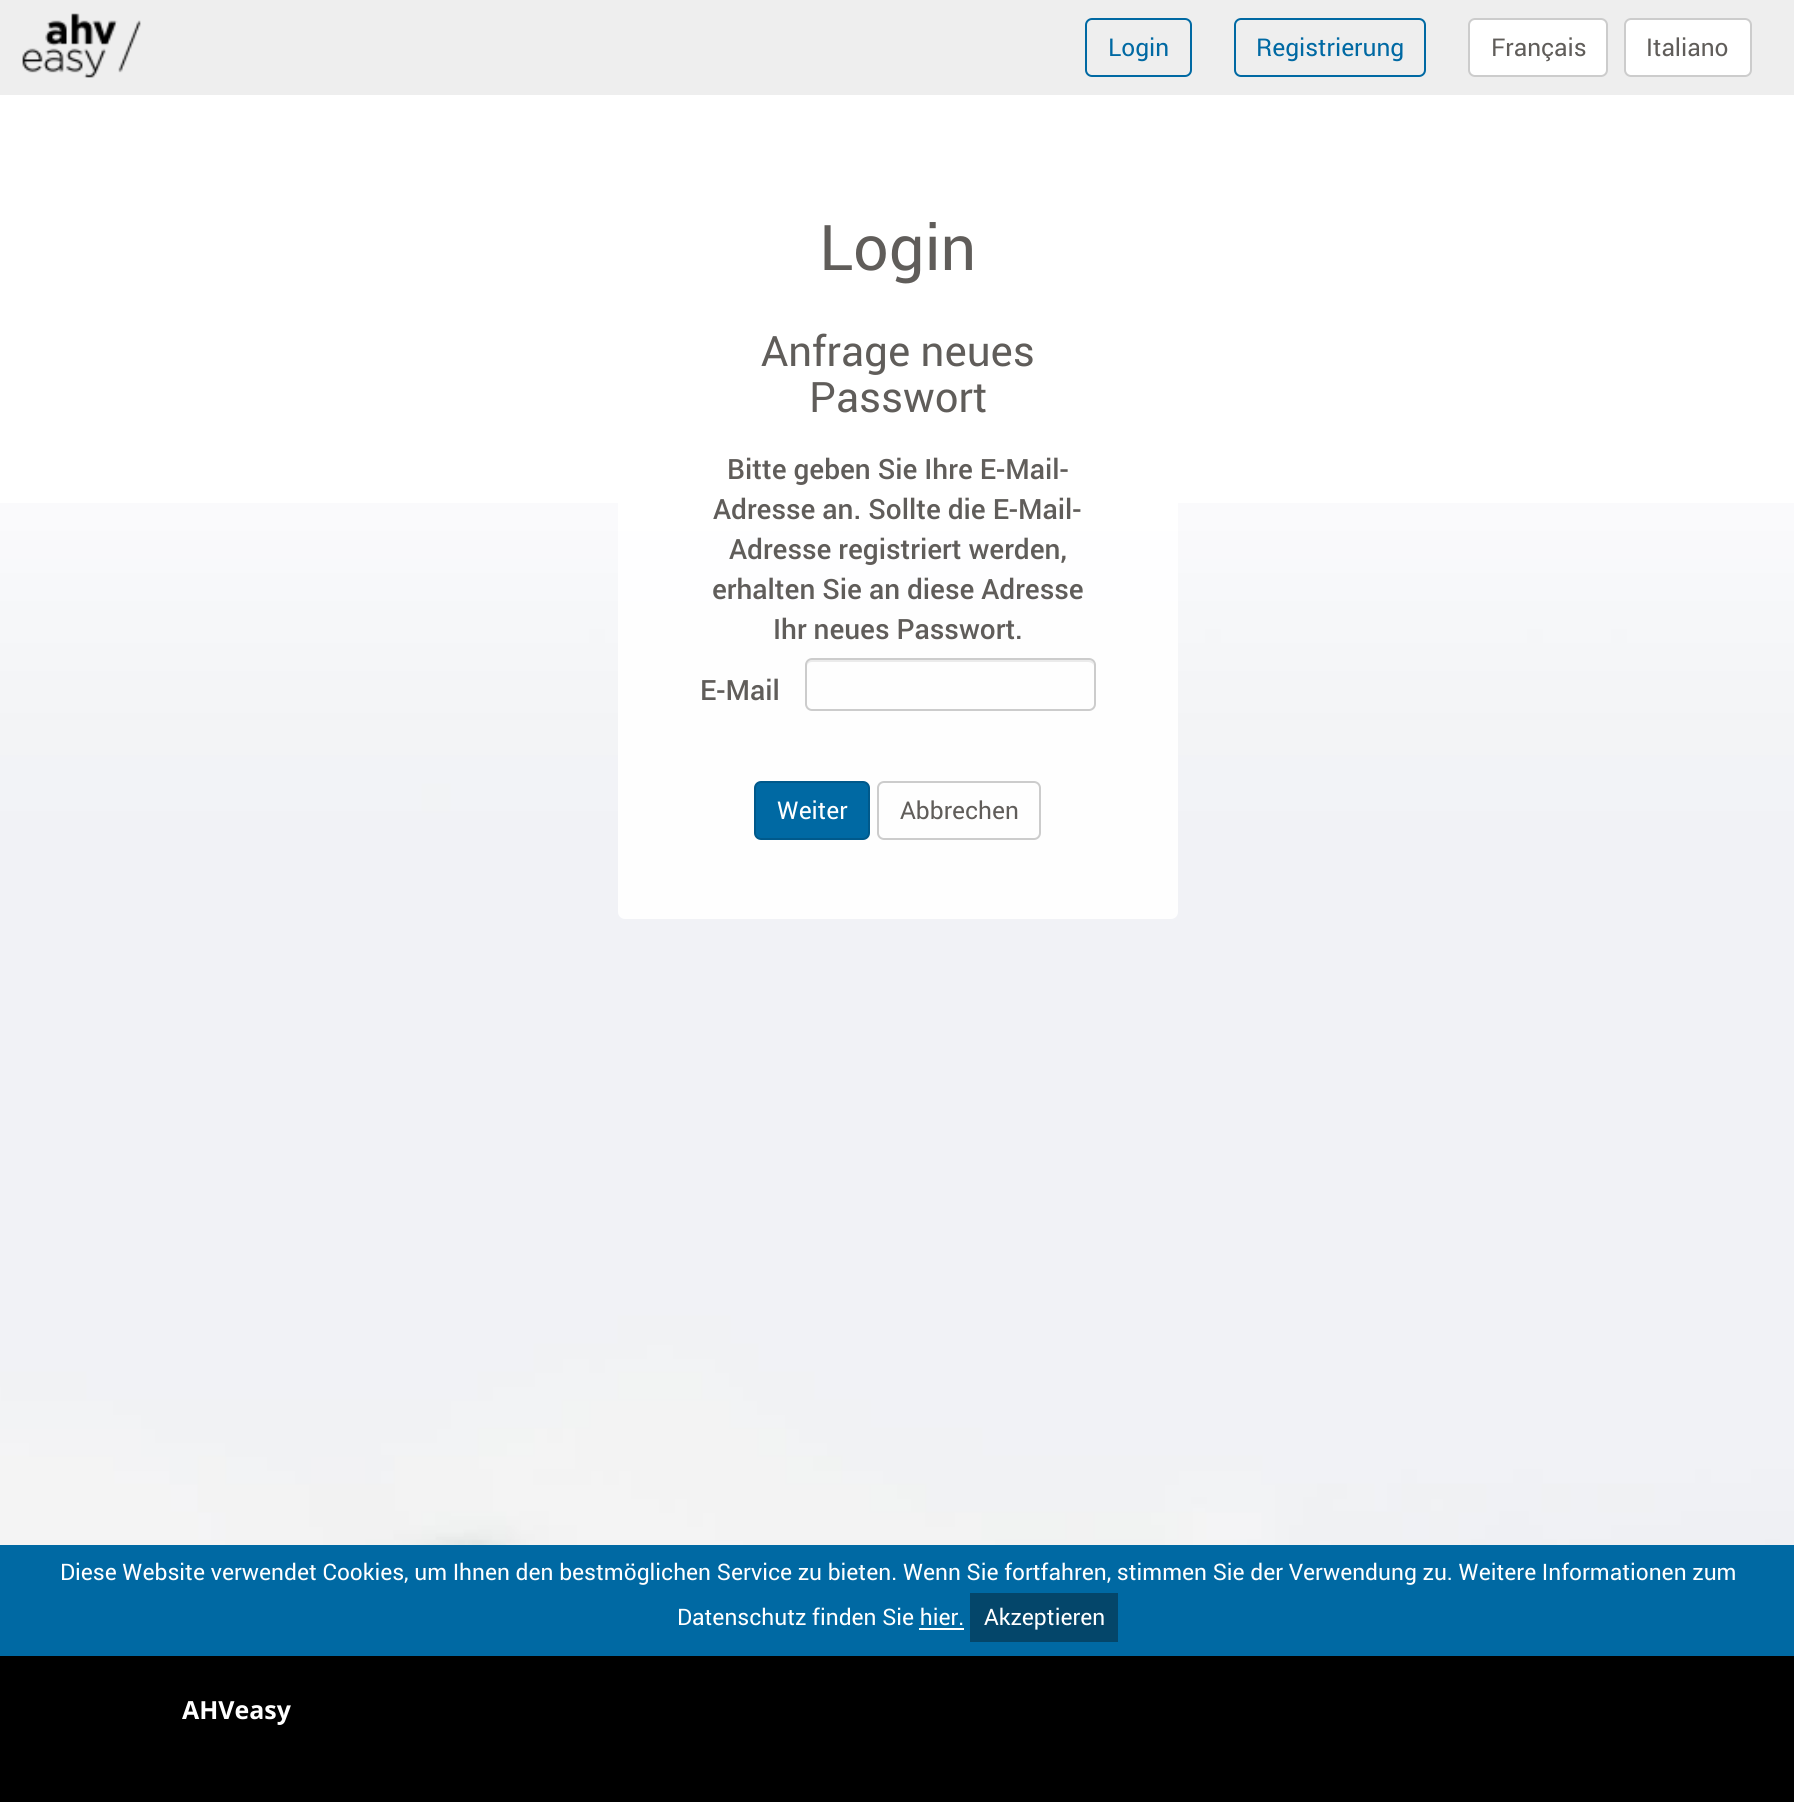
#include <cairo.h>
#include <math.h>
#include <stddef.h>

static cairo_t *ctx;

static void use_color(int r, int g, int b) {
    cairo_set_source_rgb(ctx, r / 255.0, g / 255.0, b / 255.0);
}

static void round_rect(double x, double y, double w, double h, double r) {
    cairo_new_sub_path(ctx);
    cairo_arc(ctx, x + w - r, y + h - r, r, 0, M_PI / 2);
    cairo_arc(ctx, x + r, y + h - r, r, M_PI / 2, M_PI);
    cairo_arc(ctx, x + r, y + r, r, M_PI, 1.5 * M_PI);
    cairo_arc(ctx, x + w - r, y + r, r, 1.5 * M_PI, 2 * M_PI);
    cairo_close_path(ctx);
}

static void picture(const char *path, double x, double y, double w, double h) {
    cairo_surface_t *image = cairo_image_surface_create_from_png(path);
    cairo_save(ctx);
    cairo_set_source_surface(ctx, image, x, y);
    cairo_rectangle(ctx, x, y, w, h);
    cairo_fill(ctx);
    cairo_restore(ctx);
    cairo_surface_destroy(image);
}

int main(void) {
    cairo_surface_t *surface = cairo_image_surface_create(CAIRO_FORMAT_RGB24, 1794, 1802);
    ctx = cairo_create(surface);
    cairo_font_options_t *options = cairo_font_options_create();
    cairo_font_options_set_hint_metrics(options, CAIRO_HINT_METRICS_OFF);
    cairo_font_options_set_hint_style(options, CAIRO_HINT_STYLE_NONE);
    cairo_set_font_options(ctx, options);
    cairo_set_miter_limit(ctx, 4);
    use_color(255, 255, 255);
    cairo_paint(ctx);
    picture("img1.png", 0, 503, 1794, 1042);
    cairo_set_source_rgba(ctx, 1, 1, 1, 0.91);
    round_rect(618, 93, 560, 826, 7);
    cairo_fill(ctx);
    use_color(238, 238, 238);
    cairo_rectangle(ctx, 0, 0, 1794, 95);
    cairo_fill(ctx);
    picture("img2.png", 22, 13, 119, 65);
    round_rect(1086, 19, 105, 57, 6);
    use_color(0, 105, 163);
    cairo_stroke(ctx);
    cairo_select_font_face(ctx, "roboto", CAIRO_FONT_SLANT_NORMAL, CAIRO_FONT_WEIGHT_NORMAL);
    cairo_set_font_size(ctx, 24.5);
    cairo_move_to(ctx, 1108, 56);
    cairo_show_text(ctx, "Login");
    round_rect(1235, 19, 190, 57, 6);
    cairo_stroke(ctx);
    cairo_move_to(ctx, 1256, 56);
    cairo_show_text(ctx, "Registrierung");
    use_color(255, 255, 255);
    round_rect(1469, 19, 138, 57, 6);
    cairo_fill_preserve(ctx);
    use_color(204, 204, 204);
    cairo_stroke(ctx);
    use_color(96, 93, 90);
    cairo_move_to(ctx, 1491, 56);
    cairo_show_text(ctx, "Français");
    use_color(255, 255, 255);
    round_rect(1625, 19, 126, 57, 6);
    cairo_fill_preserve(ctx);
    use_color(204, 204, 204);
    cairo_stroke(ctx);
    use_color(96, 93, 90);
    cairo_move_to(ctx, 1646, 56);
    cairo_show_text(ctx, "Italiano");
    cairo_set_font_size(ctx, 63);
    cairo_move_to(ctx, 819, 270);
    cairo_show_text(ctx, "Login");
    cairo_set_font_size(ctx, 42);
    cairo_move_to(ctx, 761, 366);
    cairo_show_text(ctx, "Anfrage neues");
    cairo_move_to(ctx, 809, 412);
    cairo_show_text(ctx, "Passwort");
    cairo_select_font_face(ctx, "Roboto Medium", CAIRO_FONT_SLANT_NORMAL, CAIRO_FONT_WEIGHT_NORMAL);
    cairo_set_font_size(ctx, 28);
    cairo_move_to(ctx, 727, 479);
    cairo_show_text(ctx, "Bitte geben Sie Ihre E-Mail-");
    cairo_move_to(ctx, 713, 519);
    cairo_show_text(ctx, "Adresse an. Sollte die E-Mail-");
    cairo_move_to(ctx, 729, 559);
    cairo_show_text(ctx, "Adresse registriert werden,");
    cairo_move_to(ctx, 712, 599);
    cairo_show_text(ctx, "erhalten Sie an diese Adresse");
    cairo_move_to(ctx, 773, 639);
    cairo_show_text(ctx, "Ihr neues Passwort.");
    cairo_move_to(ctx, 700, 700);
    cairo_show_text(ctx, "E-Mail");
    use_color(235, 235, 235);
    cairo_new_path(ctx);
    cairo_move_to(ctx, 812, 662);
    cairo_line_to(ctx, 1088, 662);
    cairo_curve_to(ctx, 1091, 662, 1094, 664, 1094, 667);
    cairo_curve_to(ctx, 1094, 664, 1093, 660, 1089, 660);
    cairo_line_to(ctx, 811, 660);
    cairo_curve_to(ctx, 807, 661, 807, 664, 807, 667);
    cairo_curve_to(ctx, 807, 664, 809, 662, 812, 662);
    cairo_close_path(ctx);
    cairo_fill(ctx);
    round_rect(806, 659, 289, 51, 6);
    use_color(204, 204, 204);
    cairo_stroke(ctx);
    use_color(0, 105, 163);
    round_rect(755, 782, 114, 57, 6);
    cairo_fill_preserve(ctx);
    use_color(0, 89, 139);
    cairo_stroke(ctx);
    cairo_select_font_face(ctx, "roboto", CAIRO_FONT_SLANT_NORMAL, CAIRO_FONT_WEIGHT_NORMAL);
    cairo_set_font_size(ctx, 24.5);
    use_color(255, 255, 255);
    cairo_move_to(ctx, 777, 819);
    cairo_show_text(ctx, "Weiter");
    round_rect(878, 782, 162, 57, 6);
    use_color(204, 204, 204);
    cairo_stroke(ctx);
    use_color(96, 93, 90);
    cairo_move_to(ctx, 900, 819);
    cairo_show_text(ctx, "Abbrechen");
    use_color(0, 105, 163);
    cairo_rectangle(ctx, 0, 1545, 1794, 111);
    cairo_fill(ctx);
    cairo_set_font_size(ctx, 22.75);
    use_color(255, 255, 255);
    cairo_move_to(ctx, 60, 1580);
    cairo_show_text(ctx, "Diese Website verwendet Cookies, um Ihnen den bestmöglichen Service zu bieten. Wenn Sie fortfahren, stimmen Sie der Verwendung zu. Weitere Informationen zum");
    cairo_move_to(ctx, 677, 1625);
    cairo_show_text(ctx, "Datenschutz finden Sie hier.");
    use_color(4, 70, 106);
    cairo_rectangle(ctx, 970, 1593, 148, 49);
    cairo_fill(ctx);
    use_color(255, 255, 255);
    cairo_move_to(ctx, 984, 1625);
    cairo_show_text(ctx, "Akzeptieren");
    cairo_rectangle(ctx, 919, 1628, 45, 2);
    cairo_fill(ctx);
    use_color(0, 0, 0);
    cairo_rectangle(ctx, 0, 1656, 1794, 146);
    cairo_fill(ctx);
    cairo_select_font_face(ctx, "Open Sans", CAIRO_FONT_SLANT_NORMAL, CAIRO_FONT_WEIGHT_BOLD);
    cairo_set_font_size(ctx, 26.25);
    use_color(255, 255, 255);
    cairo_move_to(ctx, 182, 1719);
    cairo_show_text(ctx, "AHVeasy");
    cairo_surface_write_to_png(surface, "result.png");
    cairo_font_options_destroy(options);
    cairo_destroy(ctx);
    cairo_surface_destroy(surface);
    return 0;
}
